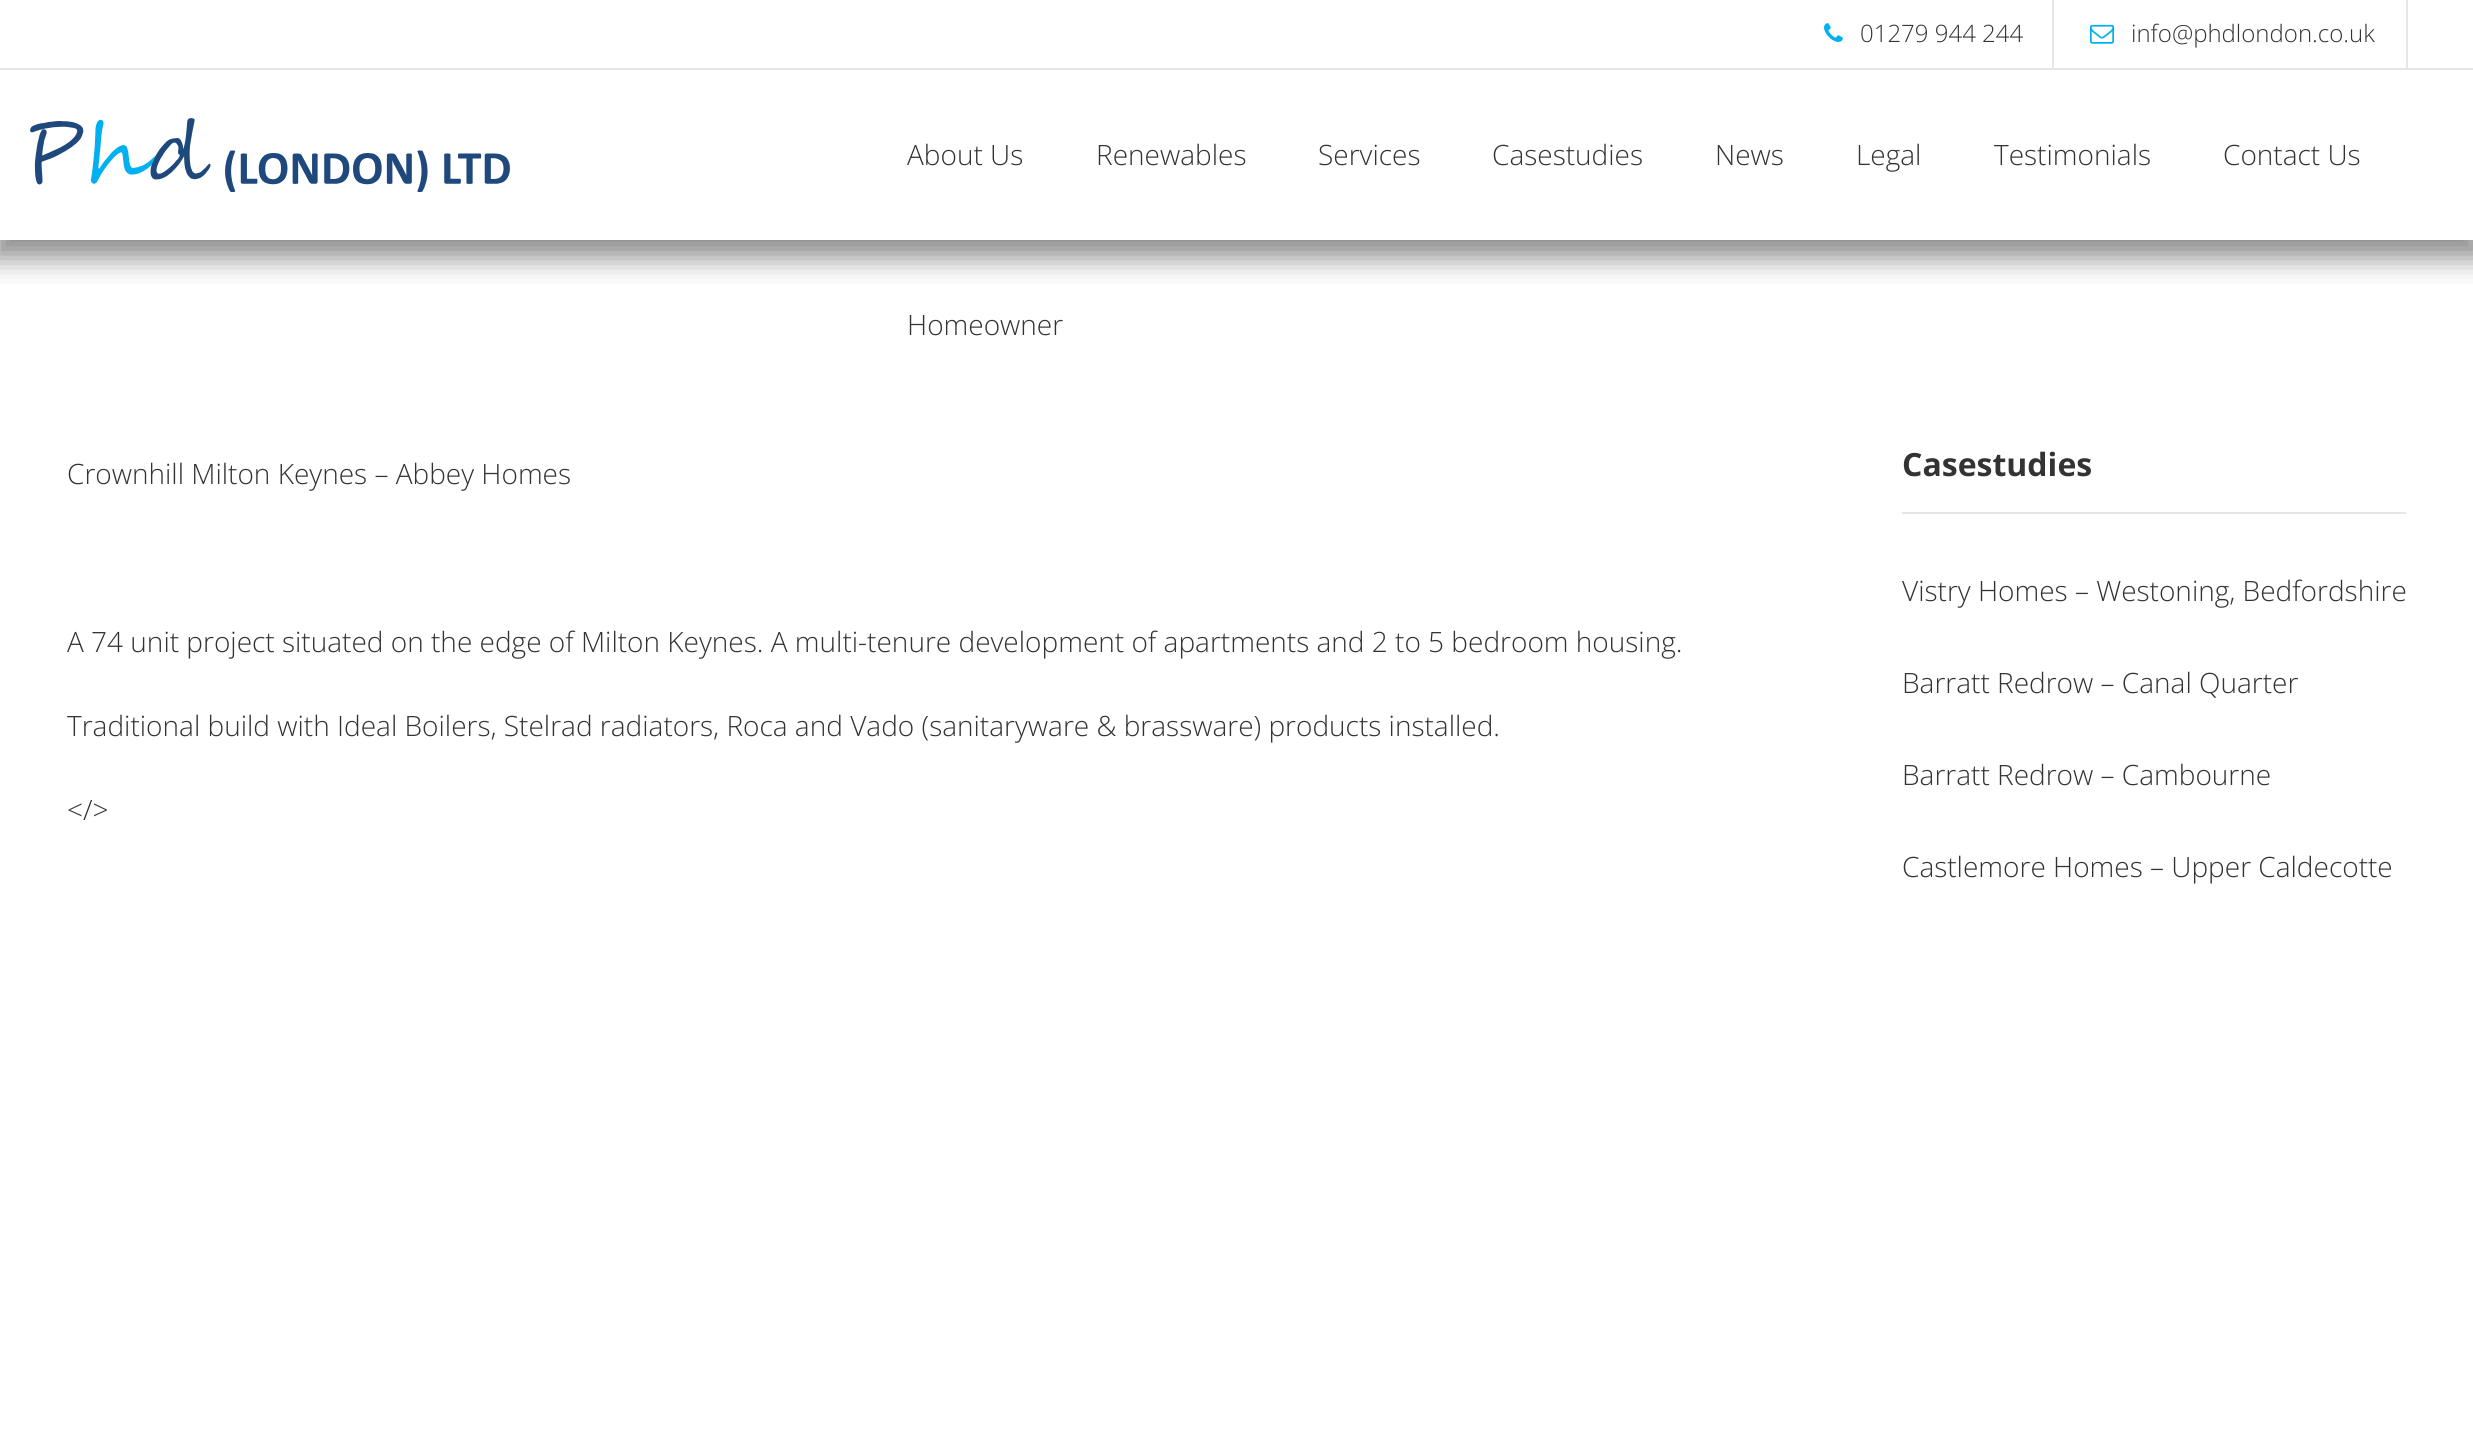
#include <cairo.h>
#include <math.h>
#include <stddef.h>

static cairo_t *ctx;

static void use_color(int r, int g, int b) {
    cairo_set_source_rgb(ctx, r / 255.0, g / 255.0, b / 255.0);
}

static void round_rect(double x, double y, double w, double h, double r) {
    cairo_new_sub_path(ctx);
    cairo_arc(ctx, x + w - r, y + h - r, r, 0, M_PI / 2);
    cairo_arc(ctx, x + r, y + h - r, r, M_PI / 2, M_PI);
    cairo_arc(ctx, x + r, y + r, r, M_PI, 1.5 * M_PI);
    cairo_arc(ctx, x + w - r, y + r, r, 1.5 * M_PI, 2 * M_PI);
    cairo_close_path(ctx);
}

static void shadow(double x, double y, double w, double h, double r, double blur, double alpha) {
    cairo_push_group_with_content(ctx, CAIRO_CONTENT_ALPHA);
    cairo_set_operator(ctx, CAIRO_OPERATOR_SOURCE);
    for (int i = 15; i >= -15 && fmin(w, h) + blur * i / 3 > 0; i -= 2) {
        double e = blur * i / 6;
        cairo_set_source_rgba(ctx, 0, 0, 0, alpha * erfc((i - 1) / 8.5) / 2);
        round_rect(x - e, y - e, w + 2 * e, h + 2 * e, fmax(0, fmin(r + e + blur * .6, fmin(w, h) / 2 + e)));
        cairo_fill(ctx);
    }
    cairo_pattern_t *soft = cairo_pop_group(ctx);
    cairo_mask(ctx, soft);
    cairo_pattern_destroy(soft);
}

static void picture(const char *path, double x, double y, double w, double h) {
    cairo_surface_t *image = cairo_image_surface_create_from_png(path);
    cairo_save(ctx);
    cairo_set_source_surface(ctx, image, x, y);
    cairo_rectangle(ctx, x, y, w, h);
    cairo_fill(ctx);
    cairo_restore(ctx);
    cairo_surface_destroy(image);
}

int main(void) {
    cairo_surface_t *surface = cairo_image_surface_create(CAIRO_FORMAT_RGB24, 2473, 1454);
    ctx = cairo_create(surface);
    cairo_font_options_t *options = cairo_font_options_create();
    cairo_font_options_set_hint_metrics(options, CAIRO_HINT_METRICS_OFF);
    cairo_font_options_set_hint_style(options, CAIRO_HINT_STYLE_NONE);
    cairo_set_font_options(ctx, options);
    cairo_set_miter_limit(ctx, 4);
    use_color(255, 255, 255);
    cairo_paint(ctx);
    cairo_save(ctx);
    cairo_rectangle(ctx, 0, 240, 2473, 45);
    cairo_clip(ctx);
    use_color(112, 112, 112);
    shadow(-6, 6, 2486, 252, 0, 14, 0.8);
    cairo_restore(ctx);
    use_color(230, 230, 230);
    cairo_rectangle(ctx, 0, 68, 2473, 2);
    cairo_fill(ctx);
    cairo_rectangle(ctx, 2052, 0, 2, 68);
    cairo_fill(ctx);
    picture("img1.png", 1824, 23, 19, 19);
    cairo_select_font_face(ctx, "Open Sans Light", CAIRO_FONT_SLANT_NORMAL, CAIRO_FONT_WEIGHT_NORMAL);
    cairo_set_font_size(ctx, 24);
    use_color(51, 51, 51);
    cairo_move_to(ctx, 1860, 42);
    cairo_show_text(ctx, "01279 944 244");
    use_color(230, 230, 230);
    cairo_rectangle(ctx, 2406, 0, 2, 68);
    cairo_fill(ctx);
    picture("img2.png", 2090, 24, 24, 20);
    use_color(51, 51, 51);
    cairo_move_to(ctx, 2131, 42);
    cairo_show_text(ctx, "info@phdlondon.co.uk");
    picture("img3.png", 30, 118, 480, 74);
    cairo_set_font_size(ctx, 28);
    cairo_move_to(ctx, 907, 165);
    cairo_show_text(ctx, "About Us");
    cairo_move_to(ctx, 1096, 165);
    cairo_show_text(ctx, "Renewables");
    cairo_move_to(ctx, 1318, 165);
    cairo_show_text(ctx, "Services");
    cairo_move_to(ctx, 1492, 165);
    cairo_show_text(ctx, "Casestudies");
    cairo_move_to(ctx, 1715, 165);
    cairo_show_text(ctx, "News");
    cairo_move_to(ctx, 1856, 165);
    cairo_show_text(ctx, "Legal");
    cairo_move_to(ctx, 1994, 165);
    cairo_show_text(ctx, "Testimonials");
    cairo_move_to(ctx, 2223, 165);
    cairo_show_text(ctx, "Contact Us");
    cairo_move_to(ctx, 907, 335);
    cairo_show_text(ctx, "Homeowner");
    cairo_move_to(ctx, 67, 484);
    cairo_show_text(ctx, "Crownhill Milton Keynes – Abbey Homes");
    cairo_move_to(ctx, 67, 652);
    cairo_show_text(ctx, "A 74 unit project situated on the edge of Milton Keynes. A multi-tenure development of apartments and 2 to 5 bedroom housing.");
    cairo_move_to(ctx, 67, 736);
    cairo_show_text(ctx, "Traditional build with Ideal Boilers, Stelrad radiators, Roca and Vado (sanitaryware & brassware) products installed.");
    cairo_move_to(ctx, 67, 820);
    cairo_show_text(ctx, "</>");
    use_color(230, 230, 230);
    cairo_rectangle(ctx, 1902, 512, 504, 2);
    cairo_fill(ctx);
    cairo_select_font_face(ctx, "Open Sans", CAIRO_FONT_SLANT_NORMAL, CAIRO_FONT_WEIGHT_BOLD);
    cairo_set_font_size(ctx, 32);
    use_color(51, 51, 51);
    cairo_move_to(ctx, 1902, 476);
    cairo_show_text(ctx, "Casestudies");
    cairo_select_font_face(ctx, "Open Sans Light", CAIRO_FONT_SLANT_NORMAL, CAIRO_FONT_WEIGHT_NORMAL);
    cairo_set_font_size(ctx, 28);
    cairo_move_to(ctx, 1902, 601);
    cairo_show_text(ctx, "Vistry Homes – Westoning, Bedfordshire");
    cairo_move_to(ctx, 1902, 693);
    cairo_show_text(ctx, "Barratt Redrow – Canal Quarter");
    cairo_move_to(ctx, 1902, 785);
    cairo_show_text(ctx, "Barratt Redrow – Cambourne");
    cairo_move_to(ctx, 1902, 877);
    cairo_show_text(ctx, "Castlemore Homes – Upper Caldecotte");
    cairo_surface_write_to_png(surface, "result.png");
    cairo_font_options_destroy(options);
    cairo_destroy(ctx);
    cairo_surface_destroy(surface);
    return 0;
}
